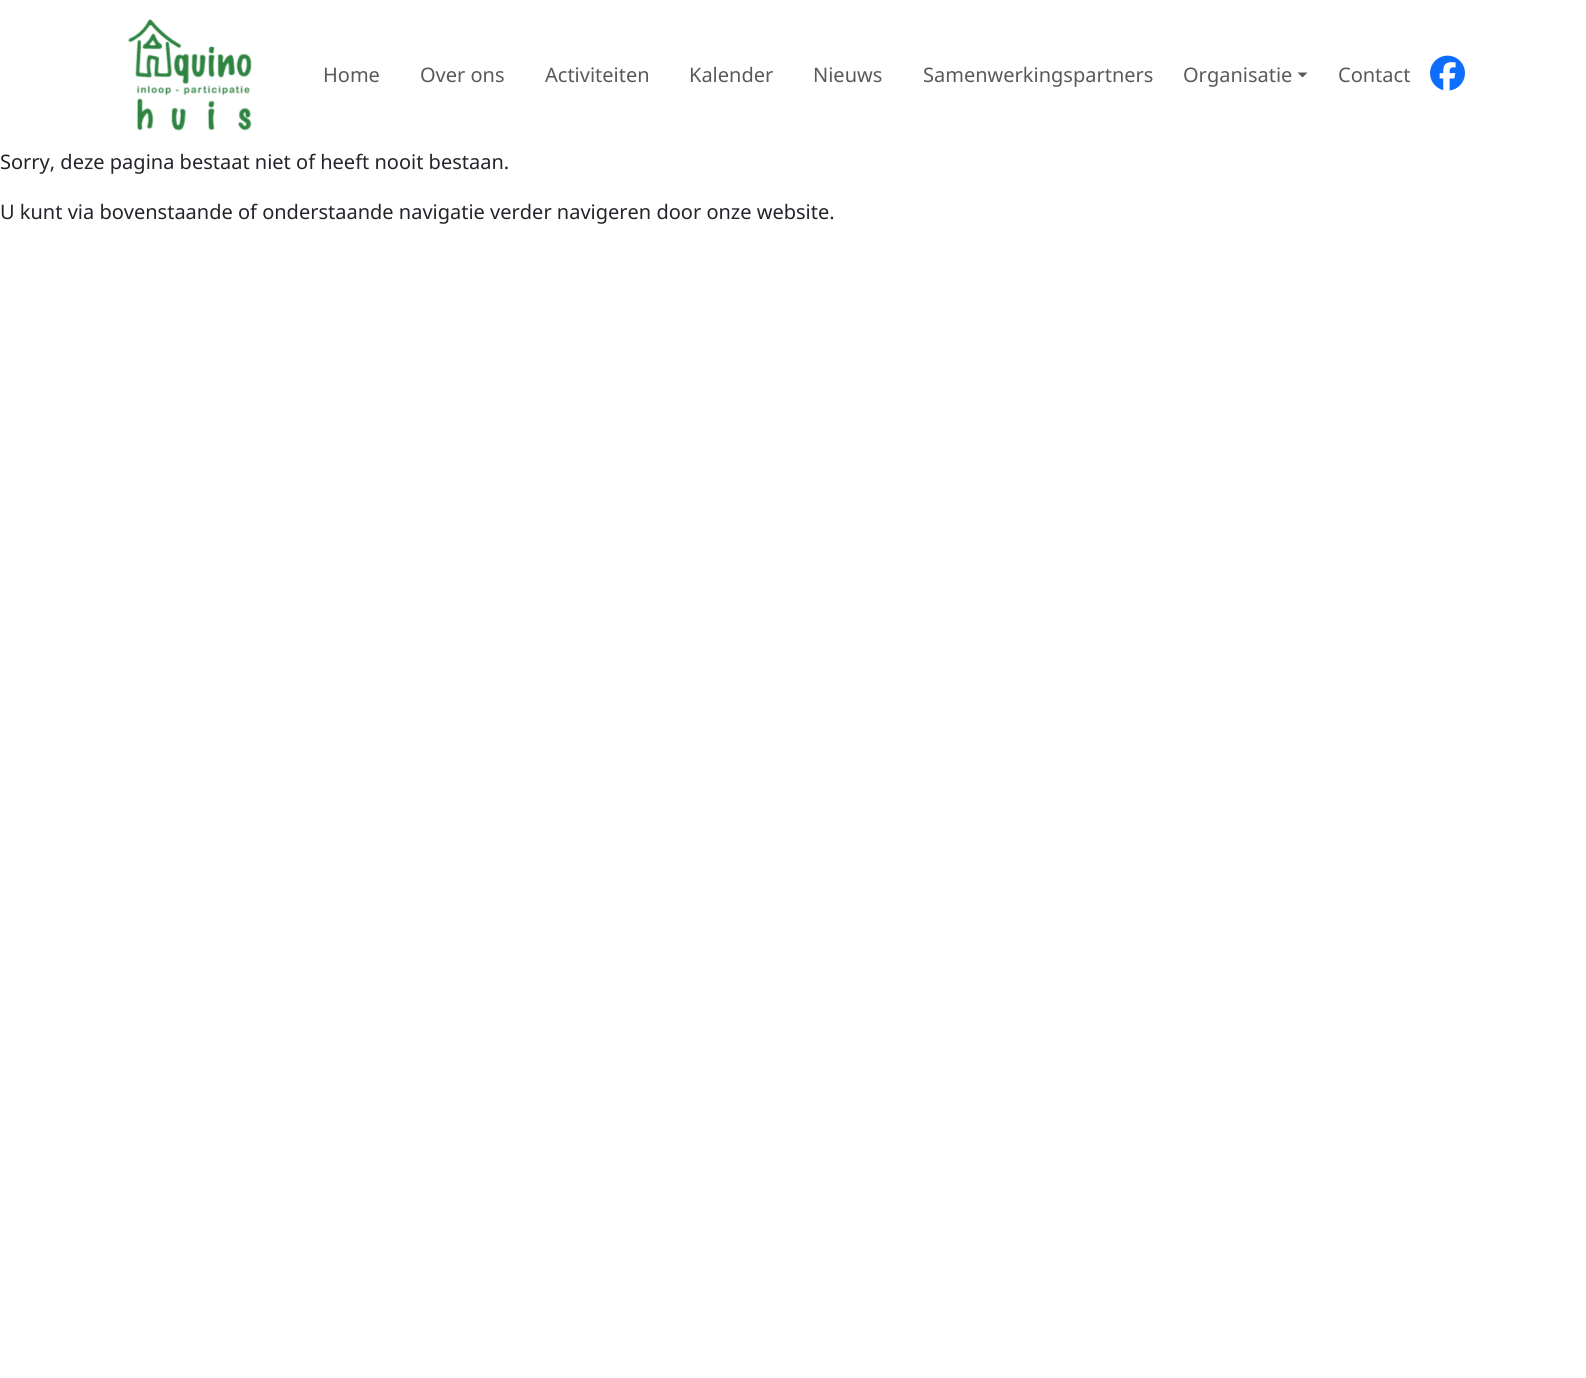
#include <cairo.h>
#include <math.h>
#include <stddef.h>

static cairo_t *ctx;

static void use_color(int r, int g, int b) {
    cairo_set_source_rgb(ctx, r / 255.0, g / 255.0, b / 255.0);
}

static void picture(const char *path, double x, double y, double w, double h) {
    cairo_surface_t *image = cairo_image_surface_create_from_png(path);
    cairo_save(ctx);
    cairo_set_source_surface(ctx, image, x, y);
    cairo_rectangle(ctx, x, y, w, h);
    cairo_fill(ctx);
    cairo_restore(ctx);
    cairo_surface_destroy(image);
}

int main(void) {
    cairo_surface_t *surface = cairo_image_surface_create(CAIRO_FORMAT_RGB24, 1586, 1378);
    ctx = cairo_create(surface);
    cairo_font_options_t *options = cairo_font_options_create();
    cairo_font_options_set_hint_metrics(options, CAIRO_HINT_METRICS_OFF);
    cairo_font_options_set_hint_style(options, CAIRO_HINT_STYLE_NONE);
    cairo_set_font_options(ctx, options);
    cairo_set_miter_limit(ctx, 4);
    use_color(255, 255, 255);
    cairo_paint(ctx);
    picture("img1.png", 128, 19, 124, 112);
    cairo_select_font_face(ctx, "Noto Sans", CAIRO_FONT_SLANT_NORMAL, CAIRO_FONT_WEIGHT_NORMAL);
    cairo_set_font_size(ctx, 20);
    use_color(89, 89, 89);
    cairo_move_to(ctx, 323, 82);
    cairo_show_text(ctx, "Home");
    cairo_move_to(ctx, 420, 82);
    cairo_show_text(ctx, "Over ons");
    cairo_move_to(ctx, 545, 82);
    cairo_show_text(ctx, "Activiteiten");
    cairo_move_to(ctx, 689, 82);
    cairo_show_text(ctx, "Kalender");
    cairo_move_to(ctx, 813, 82);
    cairo_show_text(ctx, "Nieuws");
    cairo_move_to(ctx, 923, 82);
    cairo_show_text(ctx, "Samenwerkingspartners");
    cairo_move_to(ctx, 1183, 82);
    cairo_show_text(ctx, "Organisatie");
    cairo_new_path(ctx);
    cairo_move_to(ctx, 1297.5, 72.5);
    cairo_line_to(ctx, 1307.5, 72.5);
    cairo_line_to(ctx, 1302.5, 77.5);
    cairo_close_path(ctx);
    cairo_fill(ctx);
    cairo_move_to(ctx, 1338, 82);
    cairo_show_text(ctx, "Contact");
    picture("img2.png", 1430, 55, 35, 36);
    use_color(33, 37, 41);
    cairo_move_to(ctx, 0, 169);
    cairo_show_text(ctx, "Sorry, deze pagina bestaat niet of heeft nooit bestaan.");
    cairo_move_to(ctx, 0, 219);
    cairo_show_text(ctx, "U kunt via bovenstaande of onderstaande navigatie verder navigeren door onze website.");
    cairo_surface_write_to_png(surface, "result.png");
    cairo_font_options_destroy(options);
    cairo_destroy(ctx);
    cairo_surface_destroy(surface);
    return 0;
}
